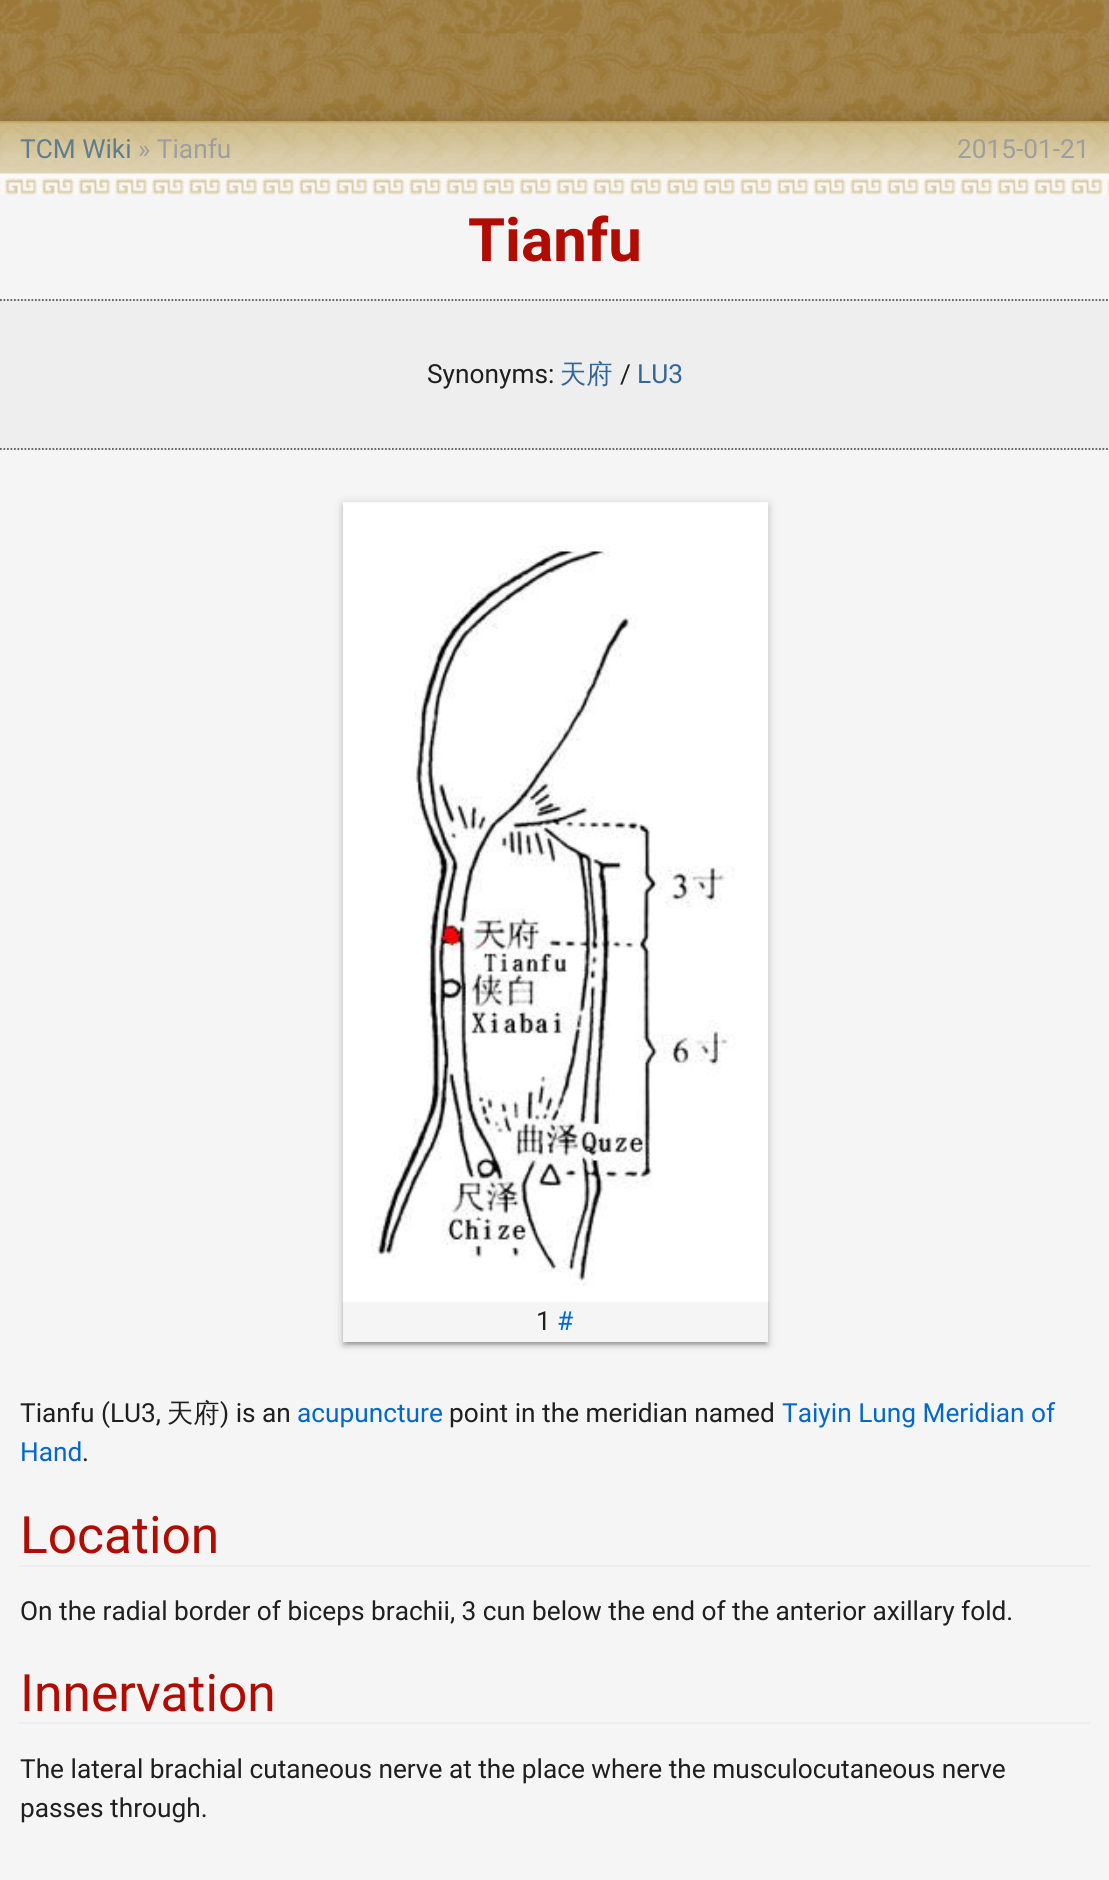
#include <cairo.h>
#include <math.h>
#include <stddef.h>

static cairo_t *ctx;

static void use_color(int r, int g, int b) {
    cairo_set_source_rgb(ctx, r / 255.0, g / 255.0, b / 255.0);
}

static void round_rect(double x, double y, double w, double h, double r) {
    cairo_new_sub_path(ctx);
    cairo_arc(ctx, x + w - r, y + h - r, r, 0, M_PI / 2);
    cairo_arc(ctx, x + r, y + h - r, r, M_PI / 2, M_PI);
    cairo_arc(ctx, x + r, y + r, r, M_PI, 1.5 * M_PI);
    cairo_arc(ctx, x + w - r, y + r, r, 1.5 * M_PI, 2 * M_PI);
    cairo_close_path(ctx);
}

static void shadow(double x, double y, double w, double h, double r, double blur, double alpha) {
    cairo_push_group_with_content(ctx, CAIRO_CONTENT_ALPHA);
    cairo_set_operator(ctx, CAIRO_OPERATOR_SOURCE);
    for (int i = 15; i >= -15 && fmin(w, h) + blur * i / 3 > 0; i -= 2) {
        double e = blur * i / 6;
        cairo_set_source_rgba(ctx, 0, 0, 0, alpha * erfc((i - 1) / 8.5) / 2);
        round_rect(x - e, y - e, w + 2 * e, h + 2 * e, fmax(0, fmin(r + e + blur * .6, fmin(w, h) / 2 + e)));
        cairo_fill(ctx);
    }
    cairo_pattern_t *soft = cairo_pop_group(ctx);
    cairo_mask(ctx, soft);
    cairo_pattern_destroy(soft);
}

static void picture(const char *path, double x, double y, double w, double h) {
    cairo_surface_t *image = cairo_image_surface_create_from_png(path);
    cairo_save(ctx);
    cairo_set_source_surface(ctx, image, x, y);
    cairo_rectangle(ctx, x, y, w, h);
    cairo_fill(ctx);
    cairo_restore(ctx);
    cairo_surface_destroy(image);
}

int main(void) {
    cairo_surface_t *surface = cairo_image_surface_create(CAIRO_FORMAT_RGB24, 1109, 1880);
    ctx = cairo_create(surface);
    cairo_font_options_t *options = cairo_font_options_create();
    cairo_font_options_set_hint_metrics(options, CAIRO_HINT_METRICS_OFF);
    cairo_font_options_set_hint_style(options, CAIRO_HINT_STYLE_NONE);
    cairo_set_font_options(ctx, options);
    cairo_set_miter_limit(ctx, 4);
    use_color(255, 255, 255);
    cairo_paint(ctx);
    picture("img1.png", 0, 0, 1109, 121);
    use_color(0, 0, 0);
    shadow(-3, 123, 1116, 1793, 0, 12, 0.12);
    shadow(-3, 131, 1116, 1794, 0, 15, 0.14);
    use_color(245, 245, 245);
    cairo_rectangle(ctx, 0, 194, 1109, 1686);
    cairo_fill(ctx);
    picture("img2.png", 0, 121, 1109, 74);
    cairo_select_font_face(ctx, "Roboto", CAIRO_FONT_SLANT_NORMAL, CAIRO_FONT_WEIGHT_NORMAL);
    cairo_set_font_size(ctx, 26.25);
    use_color(96, 125, 139);
    cairo_move_to(ctx, 20, 158);
    cairo_show_text(ctx, "TCM Wiki");
    use_color(158, 158, 158);
    cairo_move_to(ctx, 138, 158);
    cairo_show_text(ctx, "» Tianfu");
    cairo_move_to(ctx, 957, 158);
    cairo_show_text(ctx, "2015-01-21");
    cairo_select_font_face(ctx, "Roboto", CAIRO_FONT_SLANT_NORMAL, CAIRO_FONT_WEIGHT_BOLD);
    cairo_set_font_size(ctx, 60);
    use_color(177, 12, 1);
    cairo_move_to(ctx, 468, 261);
    cairo_show_text(ctx, "Tianfu");
    use_color(238, 238, 238);
    cairo_rectangle(ctx, 0, 299, 1109, 151);
    cairo_fill(ctx);
    cairo_new_path(ctx);
    cairo_move_to(ctx, 0, 300);
    cairo_line_to(ctx, 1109.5, 300);
    use_color(90, 90, 90);
    cairo_set_line_width(ctx, 1.8);
    cairo_set_dash(ctx, (double[]){1.75, 1.75}, 2, 0);
    cairo_stroke(ctx);
    cairo_new_path(ctx);
    cairo_move_to(ctx, 0, 449);
    cairo_line_to(ctx, 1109.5, 449);
    cairo_stroke(ctx);
    cairo_select_font_face(ctx, "Roboto", CAIRO_FONT_SLANT_NORMAL, CAIRO_FONT_WEIGHT_NORMAL);
    cairo_set_font_size(ctx, 26.25);
    use_color(31, 31, 31);
    cairo_move_to(ctx, 427, 383);
    cairo_show_text(ctx, "Synonyms:");
    cairo_select_font_face(ctx, "WenQuanYi Zen Hei Medium", CAIRO_FONT_SLANT_NORMAL, CAIRO_FONT_WEIGHT_NORMAL);
    use_color(51, 102, 153);
    cairo_move_to(ctx, 560, 383);
    cairo_show_text(ctx, "天府");
    cairo_select_font_face(ctx, "Roboto", CAIRO_FONT_SLANT_NORMAL, CAIRO_FONT_WEIGHT_NORMAL);
    use_color(31, 31, 31);
    cairo_move_to(ctx, 620, 383);
    cairo_show_text(ctx, "/");
    use_color(51, 102, 153);
    cairo_move_to(ctx, 637, 383);
    cairo_show_text(ctx, "LU3");
    cairo_save(ctx);
    cairo_set_fill_rule(ctx, CAIRO_FILL_RULE_EVEN_ODD);
    cairo_new_path(ctx);
    cairo_move_to(ctx, 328, 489);
    cairo_line_to(ctx, 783, 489);
    cairo_line_to(ctx, 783, 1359);
    cairo_line_to(ctx, 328, 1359);
    cairo_close_path(ctx);
    cairo_move_to(ctx, 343, 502);
    cairo_line_to(ctx, 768, 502);
    cairo_line_to(ctx, 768, 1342);
    cairo_line_to(ctx, 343, 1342);
    cairo_close_path(ctx);
    cairo_clip(ctx);
    use_color(0, 0, 0);
    shadow(343, 504, 425, 840, 0, 4.5, 0.2);
    cairo_restore(ctx);
    cairo_save(ctx);
    cairo_rectangle(ctx, 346, 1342, 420, 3);
    cairo_clip(ctx);
    use_color(0, 0, 0);
    shadow(347, 511, 418, 833, 0, 1, 0.12);
    cairo_restore(ctx);
    cairo_save(ctx);
    cairo_set_fill_rule(ctx, CAIRO_FILL_RULE_EVEN_ODD);
    cairo_new_path(ctx);
    cairo_move_to(ctx, 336, 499);
    cairo_line_to(ctx, 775, 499);
    cairo_line_to(ctx, 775, 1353);
    cairo_line_to(ctx, 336, 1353);
    cairo_close_path(ctx);
    cairo_move_to(ctx, 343, 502);
    cairo_line_to(ctx, 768, 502);
    cairo_line_to(ctx, 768, 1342);
    cairo_line_to(ctx, 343, 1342);
    cairo_close_path(ctx);
    cairo_clip(ctx);
    use_color(0, 0, 0);
    shadow(343, 506, 425, 840, 0, 2, 0.14);
    cairo_restore(ctx);
    picture("img3.png", 342, 502, 427, 800);
    use_color(31, 31, 31);
    cairo_move_to(ctx, 536, 1330);
    cairo_show_text(ctx, "1");
    use_color(2, 104, 205);
    cairo_move_to(ctx, 557, 1330);
    cairo_show_text(ctx, "#");
    use_color(31, 31, 31);
    cairo_move_to(ctx, 20, 1422);
    cairo_show_text(ctx, "Tianfu (LU3,");
    cairo_select_font_face(ctx, "WenQuanYi Zen Hei Medium", CAIRO_FONT_SLANT_NORMAL, CAIRO_FONT_WEIGHT_NORMAL);
    cairo_move_to(ctx, 167, 1422);
    cairo_show_text(ctx, "天府");
    cairo_select_font_face(ctx, "Roboto", CAIRO_FONT_SLANT_NORMAL, CAIRO_FONT_WEIGHT_NORMAL);
    cairo_move_to(ctx, 220, 1422);
    cairo_show_text(ctx, ") is an");
    use_color(2, 104, 205);
    cairo_move_to(ctx, 297, 1422);
    cairo_show_text(ctx, "acupuncture");
    use_color(31, 31, 31);
    cairo_move_to(ctx, 449, 1422);
    cairo_show_text(ctx, "point in the meridian named");
    use_color(2, 104, 205);
    cairo_move_to(ctx, 782, 1422);
    cairo_show_text(ctx, "Taiyin Lung Meridian of");
    cairo_move_to(ctx, 20, 1461);
    cairo_show_text(ctx, "Hand");
    use_color(31, 31, 31);
    cairo_move_to(ctx, 82, 1461);
    cairo_show_text(ctx, ".");
    use_color(238, 238, 238);
    cairo_rectangle(ctx, 19, 1565, 1071, 2);
    cairo_fill(ctx);
    cairo_set_font_size(ctx, 51.5);
    use_color(177, 12, 1);
    cairo_move_to(ctx, 20, 1553);
    cairo_show_text(ctx, "Location");
    cairo_set_font_size(ctx, 26.25);
    use_color(31, 31, 31);
    cairo_move_to(ctx, 20, 1620);
    cairo_show_text(ctx, "On the radial border of biceps brachii, 3 cun below the end of the anterior axillary fold.");
    use_color(238, 238, 238);
    cairo_rectangle(ctx, 19, 1722, 1071, 2);
    cairo_fill(ctx);
    cairo_set_font_size(ctx, 51.5);
    use_color(177, 12, 1);
    cairo_move_to(ctx, 20, 1711);
    cairo_show_text(ctx, "Innervation");
    cairo_set_font_size(ctx, 26.25);
    use_color(31, 31, 31);
    cairo_move_to(ctx, 20, 1778);
    cairo_show_text(ctx, "The lateral brachial cutaneous nerve at the place where the musculocutaneous nerve");
    cairo_move_to(ctx, 20, 1817);
    cairo_show_text(ctx, "passes through.");
    cairo_surface_write_to_png(surface, "result.png");
    cairo_font_options_destroy(options);
    cairo_destroy(ctx);
    cairo_surface_destroy(surface);
    return 0;
}
